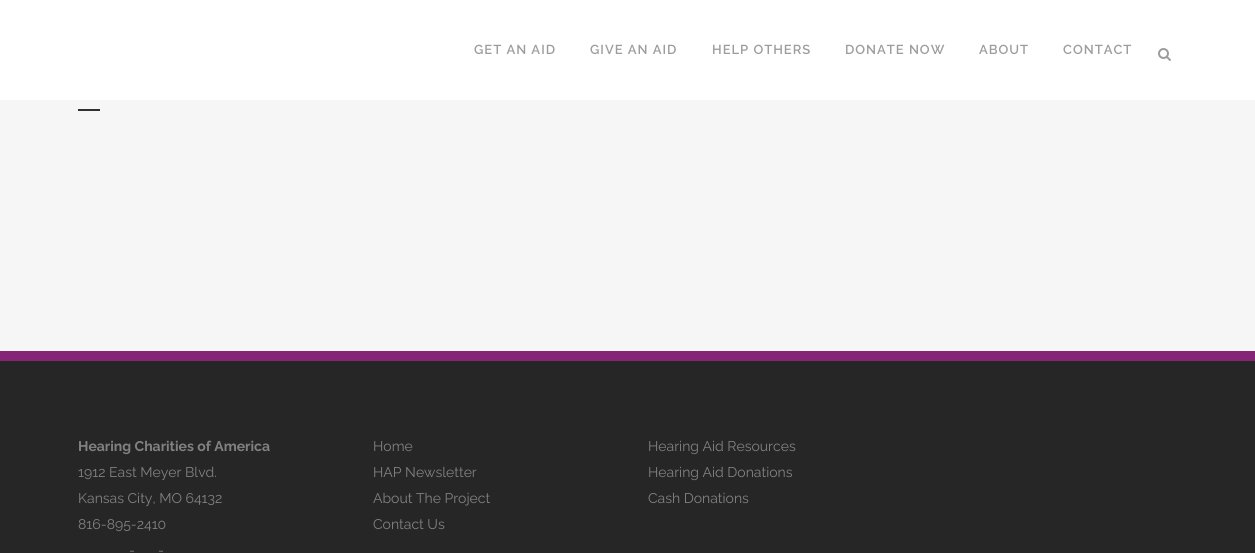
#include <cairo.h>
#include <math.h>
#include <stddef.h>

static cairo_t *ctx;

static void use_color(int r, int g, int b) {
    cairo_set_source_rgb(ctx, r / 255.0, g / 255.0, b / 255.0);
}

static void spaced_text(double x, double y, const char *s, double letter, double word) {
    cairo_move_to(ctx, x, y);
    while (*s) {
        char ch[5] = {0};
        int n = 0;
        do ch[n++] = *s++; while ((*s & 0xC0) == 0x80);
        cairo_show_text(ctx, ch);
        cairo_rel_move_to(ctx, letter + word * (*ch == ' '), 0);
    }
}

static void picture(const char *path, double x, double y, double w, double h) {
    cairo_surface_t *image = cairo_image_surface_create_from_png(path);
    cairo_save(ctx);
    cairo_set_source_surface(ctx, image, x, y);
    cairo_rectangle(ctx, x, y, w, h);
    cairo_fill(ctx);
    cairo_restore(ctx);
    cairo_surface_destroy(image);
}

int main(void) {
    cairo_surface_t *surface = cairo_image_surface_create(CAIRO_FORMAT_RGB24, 1255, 553);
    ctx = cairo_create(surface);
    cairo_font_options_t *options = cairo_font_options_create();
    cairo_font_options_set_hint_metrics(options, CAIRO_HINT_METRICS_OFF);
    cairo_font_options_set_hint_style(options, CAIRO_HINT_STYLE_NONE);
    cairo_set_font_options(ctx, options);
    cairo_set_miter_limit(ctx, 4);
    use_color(246, 246, 246);
    cairo_paint(ctx);
    use_color(255, 255, 255);
    cairo_rectangle(ctx, 0, 0, 1255, 100);
    cairo_fill(ctx);
    cairo_select_font_face(ctx, "Raleway SemiBold", CAIRO_FONT_SLANT_NORMAL, CAIRO_FONT_WEIGHT_NORMAL);
    cairo_set_font_size(ctx, 13);
    use_color(157, 157, 157);
    spaced_text(474, 54, "GET AN AID", 1, 0);
    spaced_text(590, 54, "GIVE AN AID", 1, 0);
    spaced_text(712, 54, "HELP OTHERS", 1, 0);
    spaced_text(845, 54, "DONATE NOW", 1, 0);
    spaced_text(979, 54, "ABOUT", 1, 0);
    spaced_text(1063, 54, "CONTACT", 1, 0);
    picture("img1.png", 1158, 48, 13, 13);
    use_color(48, 48, 48);
    cairo_rectangle(ctx, 78, 109, 22, 2);
    cairo_fill(ctx);
    use_color(38, 38, 38);
    cairo_rectangle(ctx, 0, 361, 1255, 192);
    cairo_fill(ctx);
    use_color(132, 38, 117);
    cairo_rectangle(ctx, 0, 351, 1255, 10);
    cairo_fill(ctx);
    cairo_select_font_face(ctx, "Raleway", CAIRO_FONT_SLANT_NORMAL, CAIRO_FONT_WEIGHT_BOLD);
    cairo_set_font_size(ctx, 14);
    use_color(129, 129, 129);
    cairo_move_to(ctx, 78, 451);
    cairo_show_text(ctx, "Hearing Charities of America");
    cairo_select_font_face(ctx, "Raleway", CAIRO_FONT_SLANT_NORMAL, CAIRO_FONT_WEIGHT_NORMAL);
    cairo_move_to(ctx, 78, 477);
    cairo_show_text(ctx, "1912 East Meyer Blvd.");
    cairo_move_to(ctx, 78, 503);
    cairo_show_text(ctx, "Kansas City, MO 64132");
    cairo_move_to(ctx, 78, 529);
    cairo_show_text(ctx, "816-895-2410");
    cairo_move_to(ctx, 129, 555);
    cairo_show_text(ctx, "-");
    cairo_move_to(ctx, 158, 555);
    cairo_show_text(ctx, "-");
    cairo_move_to(ctx, 373, 451);
    cairo_show_text(ctx, "Home");
    cairo_move_to(ctx, 373, 477);
    cairo_show_text(ctx, "HAP Newsletter");
    cairo_move_to(ctx, 373, 503);
    cairo_show_text(ctx, "About The Project");
    cairo_move_to(ctx, 373, 529);
    cairo_show_text(ctx, "Contact Us");
    cairo_move_to(ctx, 648, 451);
    cairo_show_text(ctx, "Hearing Aid Resources");
    cairo_move_to(ctx, 648, 477);
    cairo_show_text(ctx, "Hearing Aid Donations");
    cairo_move_to(ctx, 648, 503);
    cairo_show_text(ctx, "Cash Donations");
    cairo_surface_write_to_png(surface, "result.png");
    cairo_font_options_destroy(options);
    cairo_destroy(ctx);
    cairo_surface_destroy(surface);
    return 0;
}
